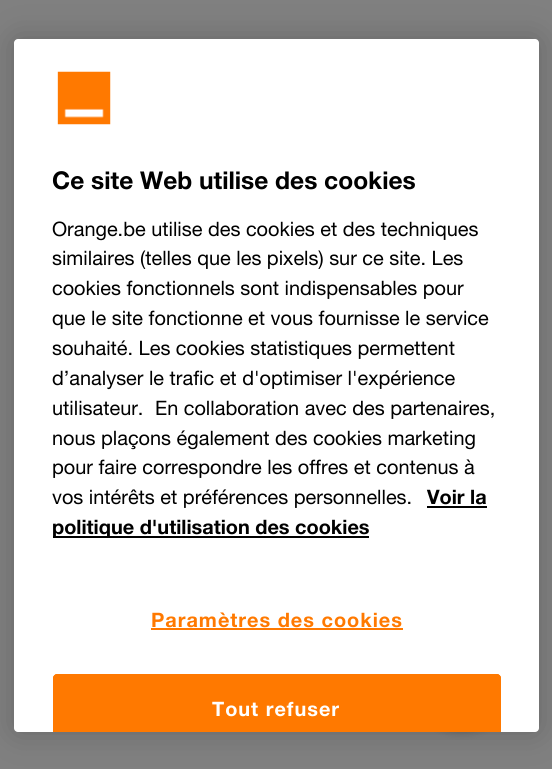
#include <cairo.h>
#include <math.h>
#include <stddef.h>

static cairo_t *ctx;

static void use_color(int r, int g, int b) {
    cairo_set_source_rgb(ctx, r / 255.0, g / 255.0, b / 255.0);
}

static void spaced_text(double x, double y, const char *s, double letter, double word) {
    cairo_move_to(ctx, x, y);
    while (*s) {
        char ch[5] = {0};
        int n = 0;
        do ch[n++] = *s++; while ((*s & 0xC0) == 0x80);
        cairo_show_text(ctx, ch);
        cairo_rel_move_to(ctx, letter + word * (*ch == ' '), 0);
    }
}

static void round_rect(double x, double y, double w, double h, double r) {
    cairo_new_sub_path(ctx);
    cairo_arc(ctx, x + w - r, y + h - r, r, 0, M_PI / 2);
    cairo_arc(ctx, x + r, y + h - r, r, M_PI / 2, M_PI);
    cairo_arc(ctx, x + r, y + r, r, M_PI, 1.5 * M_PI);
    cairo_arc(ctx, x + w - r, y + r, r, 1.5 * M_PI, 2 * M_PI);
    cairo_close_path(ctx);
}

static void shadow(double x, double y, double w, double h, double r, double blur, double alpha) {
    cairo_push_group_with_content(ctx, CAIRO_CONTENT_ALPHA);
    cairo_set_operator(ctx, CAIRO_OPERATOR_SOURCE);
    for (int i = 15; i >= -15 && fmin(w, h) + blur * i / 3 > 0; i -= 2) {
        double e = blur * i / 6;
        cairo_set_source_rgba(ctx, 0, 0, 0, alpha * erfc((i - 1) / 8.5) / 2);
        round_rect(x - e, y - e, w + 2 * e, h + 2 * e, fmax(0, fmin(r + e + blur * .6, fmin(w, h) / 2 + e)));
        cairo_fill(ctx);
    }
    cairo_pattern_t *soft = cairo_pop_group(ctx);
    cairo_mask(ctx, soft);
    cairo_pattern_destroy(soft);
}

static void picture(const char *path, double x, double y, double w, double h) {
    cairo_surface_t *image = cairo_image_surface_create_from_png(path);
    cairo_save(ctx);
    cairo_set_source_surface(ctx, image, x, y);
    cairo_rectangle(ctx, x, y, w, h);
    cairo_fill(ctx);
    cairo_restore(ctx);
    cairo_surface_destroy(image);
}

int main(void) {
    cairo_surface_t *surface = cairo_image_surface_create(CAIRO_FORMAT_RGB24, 552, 769);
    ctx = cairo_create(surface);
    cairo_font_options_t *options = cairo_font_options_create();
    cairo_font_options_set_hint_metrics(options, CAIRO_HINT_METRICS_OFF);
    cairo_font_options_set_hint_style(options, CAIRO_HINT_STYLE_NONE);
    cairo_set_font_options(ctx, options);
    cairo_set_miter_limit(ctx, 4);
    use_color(128, 128, 128);
    cairo_paint(ctx);
    use_color(0, 0, 0);
    shadow(14, 39, 525, 693, 4, 16, 0.2);
    shadow(413, 634, 98, 98, 49, 4.5, 0.2);
    use_color(255, 255, 255);
    round_rect(14, 39, 525, 693, 4);
    cairo_fill(ctx);
    picture("img1.png", 57, 71, 54, 54);
    cairo_select_font_face(ctx, "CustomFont", CAIRO_FONT_SLANT_NORMAL, CAIRO_FONT_WEIGHT_BOLD);
    cairo_set_font_size(ctx, 24.5);
    use_color(0, 0, 0);
    cairo_move_to(ctx, 52, 189);
    cairo_show_text(ctx, "Ce site Web utilise des cookies");
    cairo_select_font_face(ctx, "CustomFont", CAIRO_FONT_SLANT_NORMAL, CAIRO_FONT_WEIGHT_NORMAL);
    cairo_set_font_size(ctx, 19.9);
    cairo_move_to(ctx, 52, 236);
    cairo_show_text(ctx, "Orange.be utilise des cookies et des techniques");
    cairo_move_to(ctx, 52, 265);
    cairo_show_text(ctx, "similaires (telles que les pixels) sur ce site. Les");
    cairo_move_to(ctx, 52, 295);
    cairo_show_text(ctx, "cookies fonctionnels sont indispensables pour");
    cairo_move_to(ctx, 52, 325);
    cairo_show_text(ctx, "que le site fonctionne et vous fournisse le service");
    cairo_move_to(ctx, 52, 355);
    cairo_show_text(ctx, "souhaité. Les cookies statistiques permettent");
    cairo_move_to(ctx, 52, 385);
    cairo_show_text(ctx, "d’analyser le trafic et d'optimiser l'expérience");
    cairo_move_to(ctx, 52, 415);
    cairo_show_text(ctx, "utilisateur.");
    cairo_move_to(ctx, 155, 415);
    cairo_show_text(ctx, "En collaboration avec des partenaires,");
    cairo_move_to(ctx, 52, 445);
    cairo_show_text(ctx, "nous plaçons également des cookies marketing");
    cairo_move_to(ctx, 52, 474);
    cairo_show_text(ctx, "pour faire correspondre les offres et contenus à");
    cairo_move_to(ctx, 52, 504);
    cairo_show_text(ctx, "vos intérêts et préférences personnelles.");
    cairo_select_font_face(ctx, "CustomFont", CAIRO_FONT_SLANT_NORMAL, CAIRO_FONT_WEIGHT_BOLD);
    cairo_move_to(ctx, 427, 504);
    cairo_show_text(ctx, "Voir la");
    cairo_rectangle(ctx, 427, 506, 60, 2);
    cairo_fill(ctx);
    cairo_rectangle(ctx, 53, 536, 316, 2);
    cairo_fill(ctx);
    cairo_move_to(ctx, 52, 534);
    cairo_show_text(ctx, "politique d'utilisation des cookies");
    use_color(255, 121, 0);
    spaced_text(151, 627, "Paramètres des cookies", 1, 0);
    cairo_rectangle(ctx, 151, 628, 252, 2);
    cairo_fill(ctx);
    cairo_new_path(ctx);
    cairo_move_to(ctx, 57, 674);
    cairo_line_to(ctx, 497, 674);
    cairo_curve_to(ctx, 499, 674, 501, 676, 501, 678);
    cairo_line_to(ctx, 501, 732);
    cairo_line_to(ctx, 53, 732);
    cairo_line_to(ctx, 53, 678);
    cairo_curve_to(ctx, 53, 676, 55, 674, 57, 674);
    cairo_close_path(ctx);
    cairo_fill(ctx);
    cairo_new_path(ctx);
    cairo_move_to(ctx, 57, 674);
    cairo_curve_to(ctx, 55, 674, 53, 676, 53, 678);
    cairo_line_to(ctx, 53, 732);
    cairo_line_to(ctx, 55, 732);
    cairo_line_to(ctx, 55, 678);
    cairo_curve_to(ctx, 55, 677, 56, 676, 57, 676);
    cairo_line_to(ctx, 497, 676);
    cairo_curve_to(ctx, 498, 676, 499, 677, 499, 678);
    cairo_line_to(ctx, 499, 732);
    cairo_line_to(ctx, 501, 732);
    cairo_line_to(ctx, 501, 678);
    cairo_curve_to(ctx, 501, 676, 499, 674, 497, 674);
    cairo_close_path(ctx);
    cairo_fill(ctx);
    use_color(255, 255, 255);
    spaced_text(212, 716, "Tout refuser", 1, 0);
    cairo_surface_write_to_png(surface, "result.png");
    cairo_font_options_destroy(options);
    cairo_destroy(ctx);
    cairo_surface_destroy(surface);
    return 0;
}
